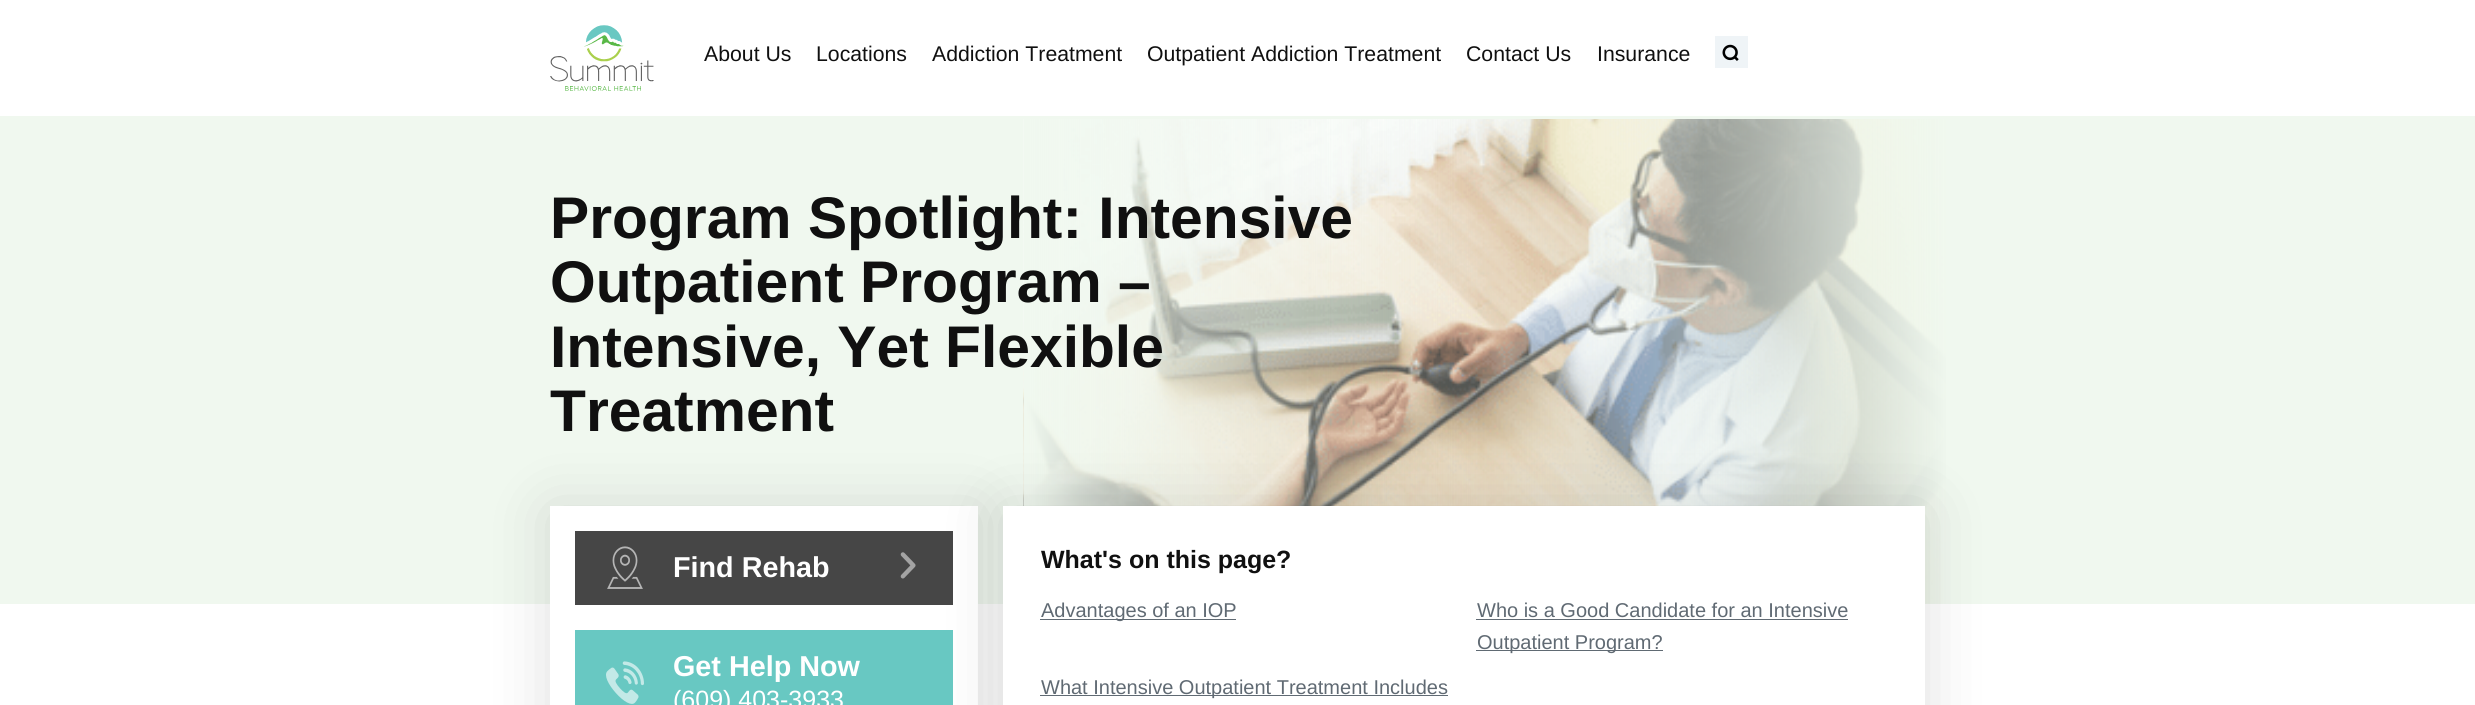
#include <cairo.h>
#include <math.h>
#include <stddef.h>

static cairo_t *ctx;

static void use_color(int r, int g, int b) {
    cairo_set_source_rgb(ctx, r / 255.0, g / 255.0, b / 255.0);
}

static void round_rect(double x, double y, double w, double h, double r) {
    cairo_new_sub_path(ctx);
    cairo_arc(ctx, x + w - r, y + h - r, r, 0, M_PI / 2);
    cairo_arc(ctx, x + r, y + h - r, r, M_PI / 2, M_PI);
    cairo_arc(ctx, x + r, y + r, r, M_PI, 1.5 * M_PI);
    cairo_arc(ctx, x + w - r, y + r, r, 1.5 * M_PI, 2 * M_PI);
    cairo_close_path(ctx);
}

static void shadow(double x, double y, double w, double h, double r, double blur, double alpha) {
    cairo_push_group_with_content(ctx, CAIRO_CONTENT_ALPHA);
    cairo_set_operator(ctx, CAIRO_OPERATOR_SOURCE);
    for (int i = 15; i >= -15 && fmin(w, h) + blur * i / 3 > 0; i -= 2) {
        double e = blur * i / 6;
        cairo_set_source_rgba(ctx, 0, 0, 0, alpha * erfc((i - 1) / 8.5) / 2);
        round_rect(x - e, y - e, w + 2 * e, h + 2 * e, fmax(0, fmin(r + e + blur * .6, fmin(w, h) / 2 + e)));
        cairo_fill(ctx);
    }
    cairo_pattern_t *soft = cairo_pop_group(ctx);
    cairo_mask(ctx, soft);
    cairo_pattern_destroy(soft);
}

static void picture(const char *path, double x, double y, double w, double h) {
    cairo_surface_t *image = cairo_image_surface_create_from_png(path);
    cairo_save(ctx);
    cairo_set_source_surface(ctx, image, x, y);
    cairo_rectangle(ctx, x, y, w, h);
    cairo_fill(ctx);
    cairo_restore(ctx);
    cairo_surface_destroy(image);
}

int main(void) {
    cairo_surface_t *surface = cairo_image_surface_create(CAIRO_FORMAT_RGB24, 2475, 705);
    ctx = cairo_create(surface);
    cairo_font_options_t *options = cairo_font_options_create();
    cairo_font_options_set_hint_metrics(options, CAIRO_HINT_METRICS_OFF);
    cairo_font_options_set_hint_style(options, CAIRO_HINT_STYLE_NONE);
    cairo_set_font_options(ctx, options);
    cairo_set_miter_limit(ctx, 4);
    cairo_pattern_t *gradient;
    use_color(240, 248, 239);
    cairo_paint(ctx);
    use_color(255, 255, 255);
    cairo_rectangle(ctx, 0, 0, 2475, 116);
    cairo_fill(ctx);
    picture("img1.png", 550, 25, 104, 66);
    cairo_select_font_face(ctx, "Liberation Sans", CAIRO_FONT_SLANT_NORMAL, CAIRO_FONT_WEIGHT_NORMAL);
    cairo_set_font_size(ctx, 21.25);
    use_color(16, 16, 16);
    cairo_move_to(ctx, 704, 61);
    cairo_show_text(ctx, "About Us");
    cairo_move_to(ctx, 816, 61);
    cairo_show_text(ctx, "Locations");
    cairo_move_to(ctx, 932, 61);
    cairo_show_text(ctx, "Addiction Treatment");
    cairo_move_to(ctx, 1147, 61);
    cairo_show_text(ctx, "Outpatient Addiction Treatment");
    cairo_move_to(ctx, 1466, 61);
    cairo_show_text(ctx, "Contact Us");
    cairo_move_to(ctx, 1597, 61);
    cairo_show_text(ctx, "Insurance");
    use_color(239, 244, 247);
    cairo_rectangle(ctx, 1715, 36, 33, 32);
    cairo_fill(ctx);
    picture("img2.png", 1722, 44, 17, 17);
    picture("img3.png", 1023, 119, 923, 485);
    gradient = cairo_pattern_create_linear(1024, 357, 1488, 357);
    cairo_pattern_add_color_stop_rgba(gradient, 0, 0.941, 0.973, 0.937, 1);
    cairo_pattern_add_color_stop_rgba(gradient, 1, 0.941, 0.973, 0.937, 0);
    cairo_set_source(ctx, gradient);
    cairo_pattern_destroy(gradient);
    cairo_rectangle(ctx, 1024, 119, 454, 387);
    cairo_fill(ctx);
    gradient = cairo_pattern_create_linear(1950, 357, 1301, 357);
    cairo_pattern_add_color_stop_rgba(gradient, 0, 0.941, 0.973, 0.937, 1);
    cairo_pattern_add_color_stop_rgba(gradient, 1, 0.941, 0.973, 0.937, 0);
    cairo_set_source(ctx, gradient);
    cairo_pattern_destroy(gradient);
    cairo_rectangle(ctx, 1315, 119, 631, 485);
    cairo_fill(ctx);
    cairo_select_font_face(ctx, "Liberation Sans", CAIRO_FONT_SLANT_NORMAL, CAIRO_FONT_WEIGHT_BOLD);
    cairo_set_font_size(ctx, 58.75);
    use_color(16, 16, 16);
    cairo_move_to(ctx, 550, 238);
    cairo_show_text(ctx, "Program Spotlight: Intensive");
    cairo_move_to(ctx, 550, 302);
    cairo_show_text(ctx, "Outpatient Program –");
    cairo_move_to(ctx, 550, 367);
    cairo_show_text(ctx, "Intensive, Yet Flexible");
    cairo_move_to(ctx, 550, 431);
    cairo_show_text(ctx, "Treatment");
    use_color(255, 255, 255);
    cairo_rectangle(ctx, 0, 604, 2475, 101);
    cairo_fill(ctx);
    use_color(16, 16, 16);
    shadow(550, 510, 428, 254, 0, 31, 0.14);
    use_color(255, 255, 255);
    cairo_rectangle(ctx, 550, 506, 428, 199);
    cairo_fill(ctx);
    use_color(16, 16, 16);
    shadow(1003, 510, 922, 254, 0, 31, 0.14);
    use_color(70, 70, 70);
    cairo_rectangle(ctx, 575, 531, 378, 74);
    cairo_fill(ctx);
    picture("img4.png", 607, 546, 36, 43);
    cairo_set_font_size(ctx, 28.75);
    use_color(255, 255, 255);
    cairo_move_to(ctx, 673, 577);
    cairo_show_text(ctx, "Find Rehab");
    picture("img5.png", 900, 552, 16, 27);
    use_color(104, 200, 194);
    cairo_rectangle(ctx, 575, 630, 378, 75);
    cairo_fill(ctx);
    picture("img6.png", 606, 661, 38, 43);
    use_color(255, 255, 255);
    cairo_move_to(ctx, 673, 676);
    cairo_show_text(ctx, "Get Help Now");
    cairo_select_font_face(ctx, "Liberation Sans", CAIRO_FONT_SLANT_NORMAL, CAIRO_FONT_WEIGHT_NORMAL);
    cairo_set_font_size(ctx, 25);
    cairo_move_to(ctx, 673, 708);
    cairo_show_text(ctx, "(609) 403-3933");
    cairo_rectangle(ctx, 1003, 506, 922, 199);
    cairo_fill(ctx);
    cairo_select_font_face(ctx, "Liberation Sans", CAIRO_FONT_SLANT_NORMAL, CAIRO_FONT_WEIGHT_BOLD);
    use_color(16, 16, 16);
    cairo_move_to(ctx, 1041, 568);
    cairo_show_text(ctx, "What's on this page?");
    use_color(96, 106, 115);
    cairo_rectangle(ctx, 1040, 619, 196, 1);
    cairo_fill(ctx);
    cairo_select_font_face(ctx, "Liberation Sans", CAIRO_FONT_SLANT_NORMAL, CAIRO_FONT_WEIGHT_NORMAL);
    cairo_set_font_size(ctx, 20);
    cairo_move_to(ctx, 1041, 617);
    cairo_show_text(ctx, "Advantages of an IOP");
    cairo_move_to(ctx, 1477, 617);
    cairo_show_text(ctx, "Who is a Good Candidate for an Intensive");
    cairo_rectangle(ctx, 1476, 619, 372, 1);
    cairo_fill(ctx);
    cairo_rectangle(ctx, 1476, 650, 187, 1);
    cairo_fill(ctx);
    cairo_move_to(ctx, 1477, 649);
    cairo_show_text(ctx, "Outpatient Program?");
    cairo_rectangle(ctx, 1040, 695, 408, 1);
    cairo_fill(ctx);
    cairo_move_to(ctx, 1041, 694);
    cairo_show_text(ctx, "What Intensive Outpatient Treatment Includes");
    cairo_surface_write_to_png(surface, "result.png");
    cairo_font_options_destroy(options);
    cairo_destroy(ctx);
    cairo_surface_destroy(surface);
    return 0;
}
